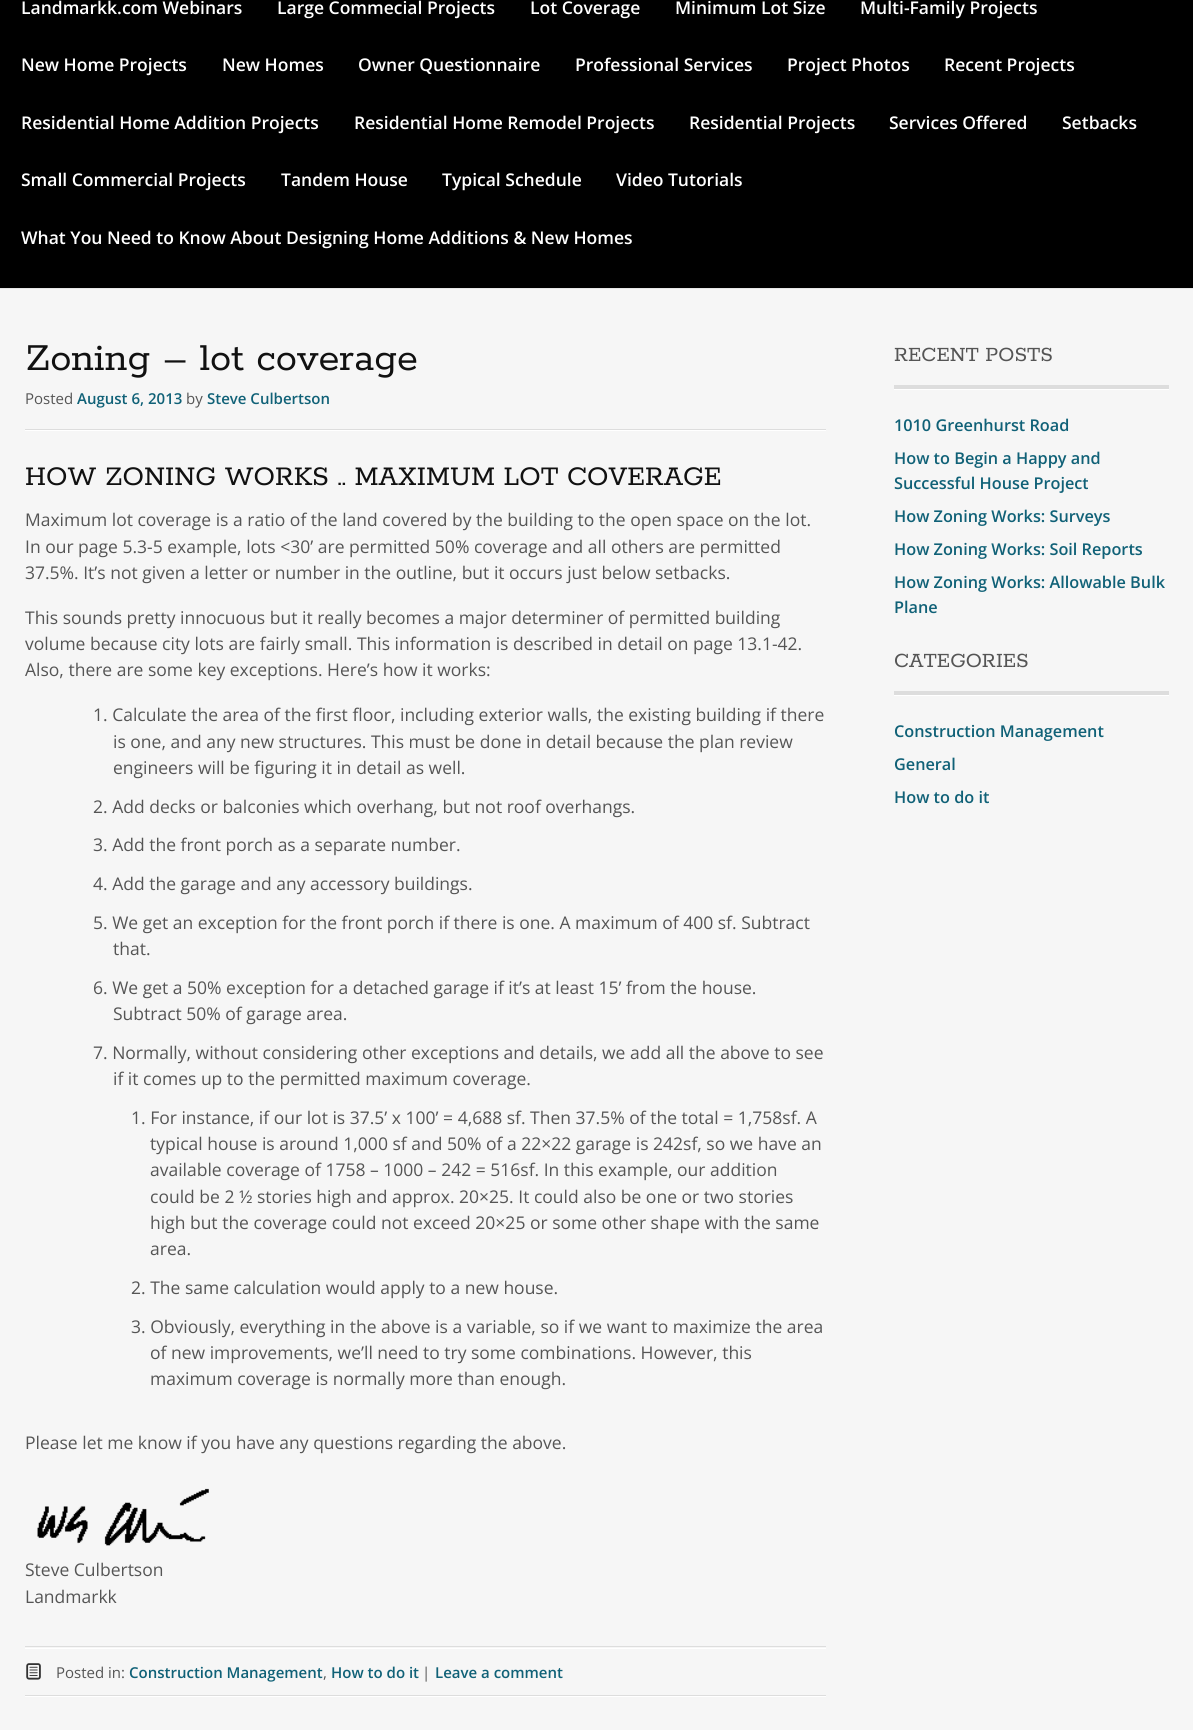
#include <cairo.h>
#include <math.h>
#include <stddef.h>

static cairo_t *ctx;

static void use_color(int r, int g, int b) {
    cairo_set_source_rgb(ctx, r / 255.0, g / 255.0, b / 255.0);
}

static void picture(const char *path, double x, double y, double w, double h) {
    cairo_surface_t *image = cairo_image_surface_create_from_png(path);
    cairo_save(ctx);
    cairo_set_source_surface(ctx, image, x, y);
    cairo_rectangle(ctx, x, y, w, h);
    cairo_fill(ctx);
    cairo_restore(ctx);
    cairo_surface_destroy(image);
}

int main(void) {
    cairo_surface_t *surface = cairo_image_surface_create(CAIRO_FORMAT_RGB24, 1193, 1730);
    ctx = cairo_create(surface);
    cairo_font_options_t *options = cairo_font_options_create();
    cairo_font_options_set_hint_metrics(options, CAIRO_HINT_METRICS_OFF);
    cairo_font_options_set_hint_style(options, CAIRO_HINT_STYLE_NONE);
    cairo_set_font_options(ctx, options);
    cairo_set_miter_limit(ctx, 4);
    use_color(246, 246, 246);
    cairo_paint(ctx);
    use_color(0, 0, 0);
    cairo_rectangle(ctx, 0, 0, 1193, 288);
    cairo_fill(ctx);
    use_color(230, 230, 230);
    cairo_rectangle(ctx, 0, 288, 1193, 1);
    cairo_fill(ctx);
    cairo_select_font_face(ctx, "Open Sans SemiBold", CAIRO_FONT_SLANT_NORMAL, CAIRO_FONT_WEIGHT_NORMAL);
    cairo_set_font_size(ctx, 17.5);
    use_color(255, 255, 255);
    cairo_move_to(ctx, 21, 14);
    cairo_show_text(ctx, "Landmarkk.com Webinars");
    cairo_move_to(ctx, 277, 14);
    cairo_show_text(ctx, "Large Commecial Projects");
    cairo_move_to(ctx, 530, 14);
    cairo_show_text(ctx, "Lot Coverage");
    cairo_move_to(ctx, 675, 14);
    cairo_show_text(ctx, "Minimum Lot Size");
    cairo_move_to(ctx, 860, 14);
    cairo_show_text(ctx, "Multi-Family Projects");
    cairo_move_to(ctx, 21, 71);
    cairo_show_text(ctx, "New Home Projects");
    cairo_move_to(ctx, 222, 71);
    cairo_show_text(ctx, "New Homes");
    cairo_move_to(ctx, 358, 71);
    cairo_show_text(ctx, "Owner Questionnaire");
    cairo_move_to(ctx, 575, 71);
    cairo_show_text(ctx, "Professional Services");
    cairo_move_to(ctx, 787, 71);
    cairo_show_text(ctx, "Project Photos");
    cairo_move_to(ctx, 944, 71);
    cairo_show_text(ctx, "Recent Projects");
    cairo_move_to(ctx, 21, 129);
    cairo_show_text(ctx, "Residential Home Addition Projects");
    cairo_move_to(ctx, 354, 129);
    cairo_show_text(ctx, "Residential Home Remodel Projects");
    cairo_move_to(ctx, 689, 129);
    cairo_show_text(ctx, "Residential Projects");
    cairo_move_to(ctx, 889, 129);
    cairo_show_text(ctx, "Services Offered");
    cairo_move_to(ctx, 1062, 129);
    cairo_show_text(ctx, "Setbacks");
    cairo_move_to(ctx, 21, 186);
    cairo_show_text(ctx, "Small Commercial Projects");
    cairo_move_to(ctx, 281, 186);
    cairo_show_text(ctx, "Tandem House");
    cairo_move_to(ctx, 442, 186);
    cairo_show_text(ctx, "Typical Schedule");
    cairo_move_to(ctx, 616, 186);
    cairo_show_text(ctx, "Video Tutorials");
    cairo_move_to(ctx, 21, 244);
    cairo_show_text(ctx, "What You Need to Know About Designing Home Additions & New Homes");
    cairo_rectangle(ctx, 25, 430, 801, 1);
    cairo_fill(ctx);
    use_color(221, 221, 221);
    cairo_rectangle(ctx, 25, 429, 801, 1);
    cairo_fill(ctx);
    cairo_select_font_face(ctx, "Rokkitt", CAIRO_FONT_SLANT_NORMAL, CAIRO_FONT_WEIGHT_NORMAL);
    cairo_set_font_size(ctx, 42.5);
    use_color(17, 17, 17);
    cairo_move_to(ctx, 25, 370);
    cairo_show_text(ctx, "Zoning – lot coverage");
    cairo_select_font_face(ctx, "Open Sans", CAIRO_FONT_SLANT_NORMAL, CAIRO_FONT_WEIGHT_NORMAL);
    cairo_set_font_size(ctx, 15);
    use_color(85, 85, 85);
    cairo_move_to(ctx, 25, 404);
    cairo_show_text(ctx, "Posted");
    cairo_select_font_face(ctx, "Open Sans SemiBold", CAIRO_FONT_SLANT_NORMAL, CAIRO_FONT_WEIGHT_NORMAL);
    use_color(16, 97, 119);
    cairo_move_to(ctx, 77, 404);
    cairo_show_text(ctx, "August 6, 2013");
    cairo_select_font_face(ctx, "Open Sans", CAIRO_FONT_SLANT_NORMAL, CAIRO_FONT_WEIGHT_NORMAL);
    use_color(85, 85, 85);
    cairo_move_to(ctx, 186, 404);
    cairo_show_text(ctx, "by");
    cairo_select_font_face(ctx, "Open Sans SemiBold", CAIRO_FONT_SLANT_NORMAL, CAIRO_FONT_WEIGHT_NORMAL);
    use_color(16, 97, 119);
    cairo_move_to(ctx, 207, 404);
    cairo_show_text(ctx, "Steve Culbertson");
    cairo_select_font_face(ctx, "Rokkitt", CAIRO_FONT_SLANT_NORMAL, CAIRO_FONT_WEIGHT_NORMAL);
    cairo_set_font_size(ctx, 30);
    use_color(17, 17, 17);
    cairo_move_to(ctx, 25, 485);
    cairo_show_text(ctx, "HOW ZONING WORKS .. MAXIMUM LOT COVERAGE");
    cairo_select_font_face(ctx, "Open Sans", CAIRO_FONT_SLANT_NORMAL, CAIRO_FONT_WEIGHT_NORMAL);
    cairo_set_font_size(ctx, 17.5);
    use_color(85, 85, 85);
    cairo_move_to(ctx, 25, 526);
    cairo_show_text(ctx, "Maximum lot coverage is a ratio of the land covered by the building to the open space on the lot.");
    cairo_move_to(ctx, 25, 553);
    cairo_show_text(ctx, "In our page 5.3-5 example, lots <30’ are permitted 50% coverage and all others are permitted");
    cairo_move_to(ctx, 25, 579);
    cairo_show_text(ctx, "37.5%. It’s not given a letter or number in the outline, but it occurs just below setbacks.");
    cairo_move_to(ctx, 25, 624);
    cairo_show_text(ctx, "This sounds pretty innocuous but it really becomes a major determiner of permitted building");
    cairo_move_to(ctx, 25, 650);
    cairo_show_text(ctx, "volume because city lots are fairly small. This information is described in detail on page 13.1-42.");
    cairo_move_to(ctx, 25, 676);
    cairo_show_text(ctx, "Also, there are some key exceptions. Here’s how it works:");
    cairo_move_to(ctx, 93, 721);
    cairo_show_text(ctx, "1. Calculate the area of the first floor, including exterior walls, the existing building if there");
    cairo_move_to(ctx, 113, 748);
    cairo_show_text(ctx, "is one, and any new structures. This must be done in detail because the plan review");
    cairo_move_to(ctx, 113, 774);
    cairo_show_text(ctx, "engineers will be figuring it in detail as well.");
    cairo_move_to(ctx, 93, 813);
    cairo_show_text(ctx, "2. Add decks or balconies which overhang, but not roof overhangs.");
    cairo_move_to(ctx, 93, 851);
    cairo_show_text(ctx, "3. Add the front porch as a separate number.");
    cairo_move_to(ctx, 93, 890);
    cairo_show_text(ctx, "4. Add the garage and any accessory buildings.");
    cairo_move_to(ctx, 93, 929);
    cairo_show_text(ctx, "5. We get an exception for the front porch if there is one. A maximum of 400 sf. Subtract");
    cairo_move_to(ctx, 113, 955);
    cairo_show_text(ctx, "that.");
    cairo_move_to(ctx, 93, 994);
    cairo_show_text(ctx, "6. We get a 50% exception for a detached garage if it’s at least 15’ from the house.");
    cairo_move_to(ctx, 113, 1020);
    cairo_show_text(ctx, "Subtract 50% of garage area.");
    cairo_move_to(ctx, 93, 1059);
    cairo_show_text(ctx, "7. Normally, without considering other exceptions and details, we add all the above to see");
    cairo_move_to(ctx, 113, 1085);
    cairo_show_text(ctx, "if it comes up to the permitted maximum coverage.");
    cairo_move_to(ctx, 131, 1124);
    cairo_show_text(ctx, "1. For instance, if our lot is 37.5’ x 100’ = 4,688 sf. Then 37.5% of the total = 1,758sf. A");
    cairo_move_to(ctx, 150, 1150);
    cairo_show_text(ctx, "typical house is around 1,000 sf and 50% of a 22×22 garage is 242sf, so we have an");
    cairo_move_to(ctx, 150, 1176);
    cairo_show_text(ctx, "available coverage of 1758 – 1000 – 242 = 516sf. In this example, our addition");
    cairo_move_to(ctx, 150, 1203);
    cairo_show_text(ctx, "could be 2 ½ stories high and approx. 20×25. It could also be one or two stories");
    cairo_move_to(ctx, 150, 1229);
    cairo_show_text(ctx, "high but the coverage could not exceed 20×25 or some other shape with the same");
    cairo_move_to(ctx, 150, 1255);
    cairo_show_text(ctx, "area.");
    cairo_move_to(ctx, 131, 1294);
    cairo_show_text(ctx, "2. The same calculation would apply to a new house.");
    cairo_move_to(ctx, 131, 1333);
    cairo_show_text(ctx, "3. Obviously, everything in the above is a variable, so if we want to maximize the area");
    cairo_move_to(ctx, 150, 1359);
    cairo_show_text(ctx, "of new improvements, we’ll need to try some combinations. However, this");
    cairo_move_to(ctx, 150, 1385);
    cairo_show_text(ctx, "maximum coverage is normally more than enough.");
    cairo_move_to(ctx, 25, 1449);
    cairo_show_text(ctx, "Please let me know if you have any questions regarding the above.");
    picture("img1.png", 37, 1488, 172, 58);
    cairo_move_to(ctx, 25, 1576);
    cairo_show_text(ctx, "Steve Culbertson");
    cairo_move_to(ctx, 25, 1603);
    cairo_show_text(ctx, "Landmarkk");
    use_color(255, 255, 255);
    cairo_rectangle(ctx, 25, 1648, 801, 1);
    cairo_fill(ctx);
    use_color(221, 221, 221);
    cairo_rectangle(ctx, 25, 1646, 801, 1);
    cairo_fill(ctx);
    picture("img2.png", 26, 1663, 15, 17);
    cairo_set_font_size(ctx, 15);
    use_color(85, 85, 85);
    cairo_move_to(ctx, 56, 1678);
    cairo_show_text(ctx, "Posted in:");
    cairo_select_font_face(ctx, "Open Sans SemiBold", CAIRO_FONT_SLANT_NORMAL, CAIRO_FONT_WEIGHT_NORMAL);
    use_color(16, 97, 119);
    cairo_move_to(ctx, 129, 1678);
    cairo_show_text(ctx, "Construction Management");
    cairo_select_font_face(ctx, "Open Sans", CAIRO_FONT_SLANT_NORMAL, CAIRO_FONT_WEIGHT_NORMAL);
    use_color(85, 85, 85);
    cairo_move_to(ctx, 323, 1678);
    cairo_show_text(ctx, ",");
    cairo_select_font_face(ctx, "Open Sans SemiBold", CAIRO_FONT_SLANT_NORMAL, CAIRO_FONT_WEIGHT_NORMAL);
    use_color(16, 97, 119);
    cairo_move_to(ctx, 331, 1678);
    cairo_show_text(ctx, "How to do it");
    cairo_select_font_face(ctx, "Open Sans", CAIRO_FONT_SLANT_NORMAL, CAIRO_FONT_WEIGHT_NORMAL);
    use_color(85, 85, 85);
    cairo_move_to(ctx, 422, 1678);
    cairo_show_text(ctx, "|");
    cairo_select_font_face(ctx, "Open Sans SemiBold", CAIRO_FONT_SLANT_NORMAL, CAIRO_FONT_WEIGHT_NORMAL);
    use_color(16, 97, 119);
    cairo_move_to(ctx, 435, 1678);
    cairo_show_text(ctx, "Leave a comment");
    use_color(255, 255, 255);
    cairo_rectangle(ctx, 25, 1696, 801, 1);
    cairo_fill(ctx);
    use_color(221, 221, 221);
    cairo_rectangle(ctx, 25, 1695, 801, 1);
    cairo_fill(ctx);
    use_color(255, 255, 255);
    cairo_new_path(ctx);
    cairo_move_to(ctx, 894, 389);
    cairo_line_to(ctx, 894, 390);
    cairo_line_to(ctx, 1169, 390);
    cairo_line_to(ctx, 1169, 340);
    cairo_line_to(ctx, 1169, 389);
    cairo_close_path(ctx);
    cairo_fill(ctx);
    use_color(221, 221, 221);
    cairo_rectangle(ctx, 894, 385, 275, 4);
    cairo_fill(ctx);
    cairo_select_font_face(ctx, "Rokkitt", CAIRO_FONT_SLANT_NORMAL, CAIRO_FONT_WEIGHT_NORMAL);
    cairo_set_font_size(ctx, 22.5);
    use_color(85, 85, 85);
    cairo_move_to(ctx, 894, 361);
    cairo_show_text(ctx, "RECENT POSTS");
    cairo_select_font_face(ctx, "Open Sans SemiBold", CAIRO_FONT_SLANT_NORMAL, CAIRO_FONT_WEIGHT_NORMAL);
    cairo_set_font_size(ctx, 16.25);
    use_color(16, 97, 119);
    cairo_move_to(ctx, 894, 431);
    cairo_show_text(ctx, "1010 Greenhurst Road");
    cairo_move_to(ctx, 894, 464);
    cairo_show_text(ctx, "How to Begin a Happy and");
    cairo_move_to(ctx, 894, 489);
    cairo_show_text(ctx, "Successful House Project");
    cairo_move_to(ctx, 894, 522);
    cairo_show_text(ctx, "How Zoning Works: Surveys");
    cairo_move_to(ctx, 894, 555);
    cairo_show_text(ctx, "How Zoning Works: Soil Reports");
    cairo_move_to(ctx, 894, 588);
    cairo_show_text(ctx, "How Zoning Works: Allowable Bulk");
    cairo_move_to(ctx, 894, 613);
    cairo_show_text(ctx, "Plane");
    use_color(255, 255, 255);
    cairo_new_path(ctx);
    cairo_move_to(ctx, 894, 695);
    cairo_line_to(ctx, 894, 696);
    cairo_line_to(ctx, 1169, 696);
    cairo_line_to(ctx, 1169, 646);
    cairo_line_to(ctx, 1169, 695);
    cairo_close_path(ctx);
    cairo_fill(ctx);
    use_color(221, 221, 221);
    cairo_rectangle(ctx, 894, 691, 275, 4);
    cairo_fill(ctx);
    cairo_select_font_face(ctx, "Rokkitt", CAIRO_FONT_SLANT_NORMAL, CAIRO_FONT_WEIGHT_NORMAL);
    cairo_set_font_size(ctx, 22.5);
    use_color(85, 85, 85);
    cairo_move_to(ctx, 894, 667);
    cairo_show_text(ctx, "CATEGORIES");
    cairo_select_font_face(ctx, "Open Sans SemiBold", CAIRO_FONT_SLANT_NORMAL, CAIRO_FONT_WEIGHT_NORMAL);
    cairo_set_font_size(ctx, 16.25);
    use_color(16, 97, 119);
    cairo_move_to(ctx, 894, 737);
    cairo_show_text(ctx, "Construction Management");
    cairo_move_to(ctx, 894, 770);
    cairo_show_text(ctx, "General");
    cairo_move_to(ctx, 894, 803);
    cairo_show_text(ctx, "How to do it");
    cairo_surface_write_to_png(surface, "result.png");
    cairo_font_options_destroy(options);
    cairo_destroy(ctx);
    cairo_surface_destroy(surface);
    return 0;
}
